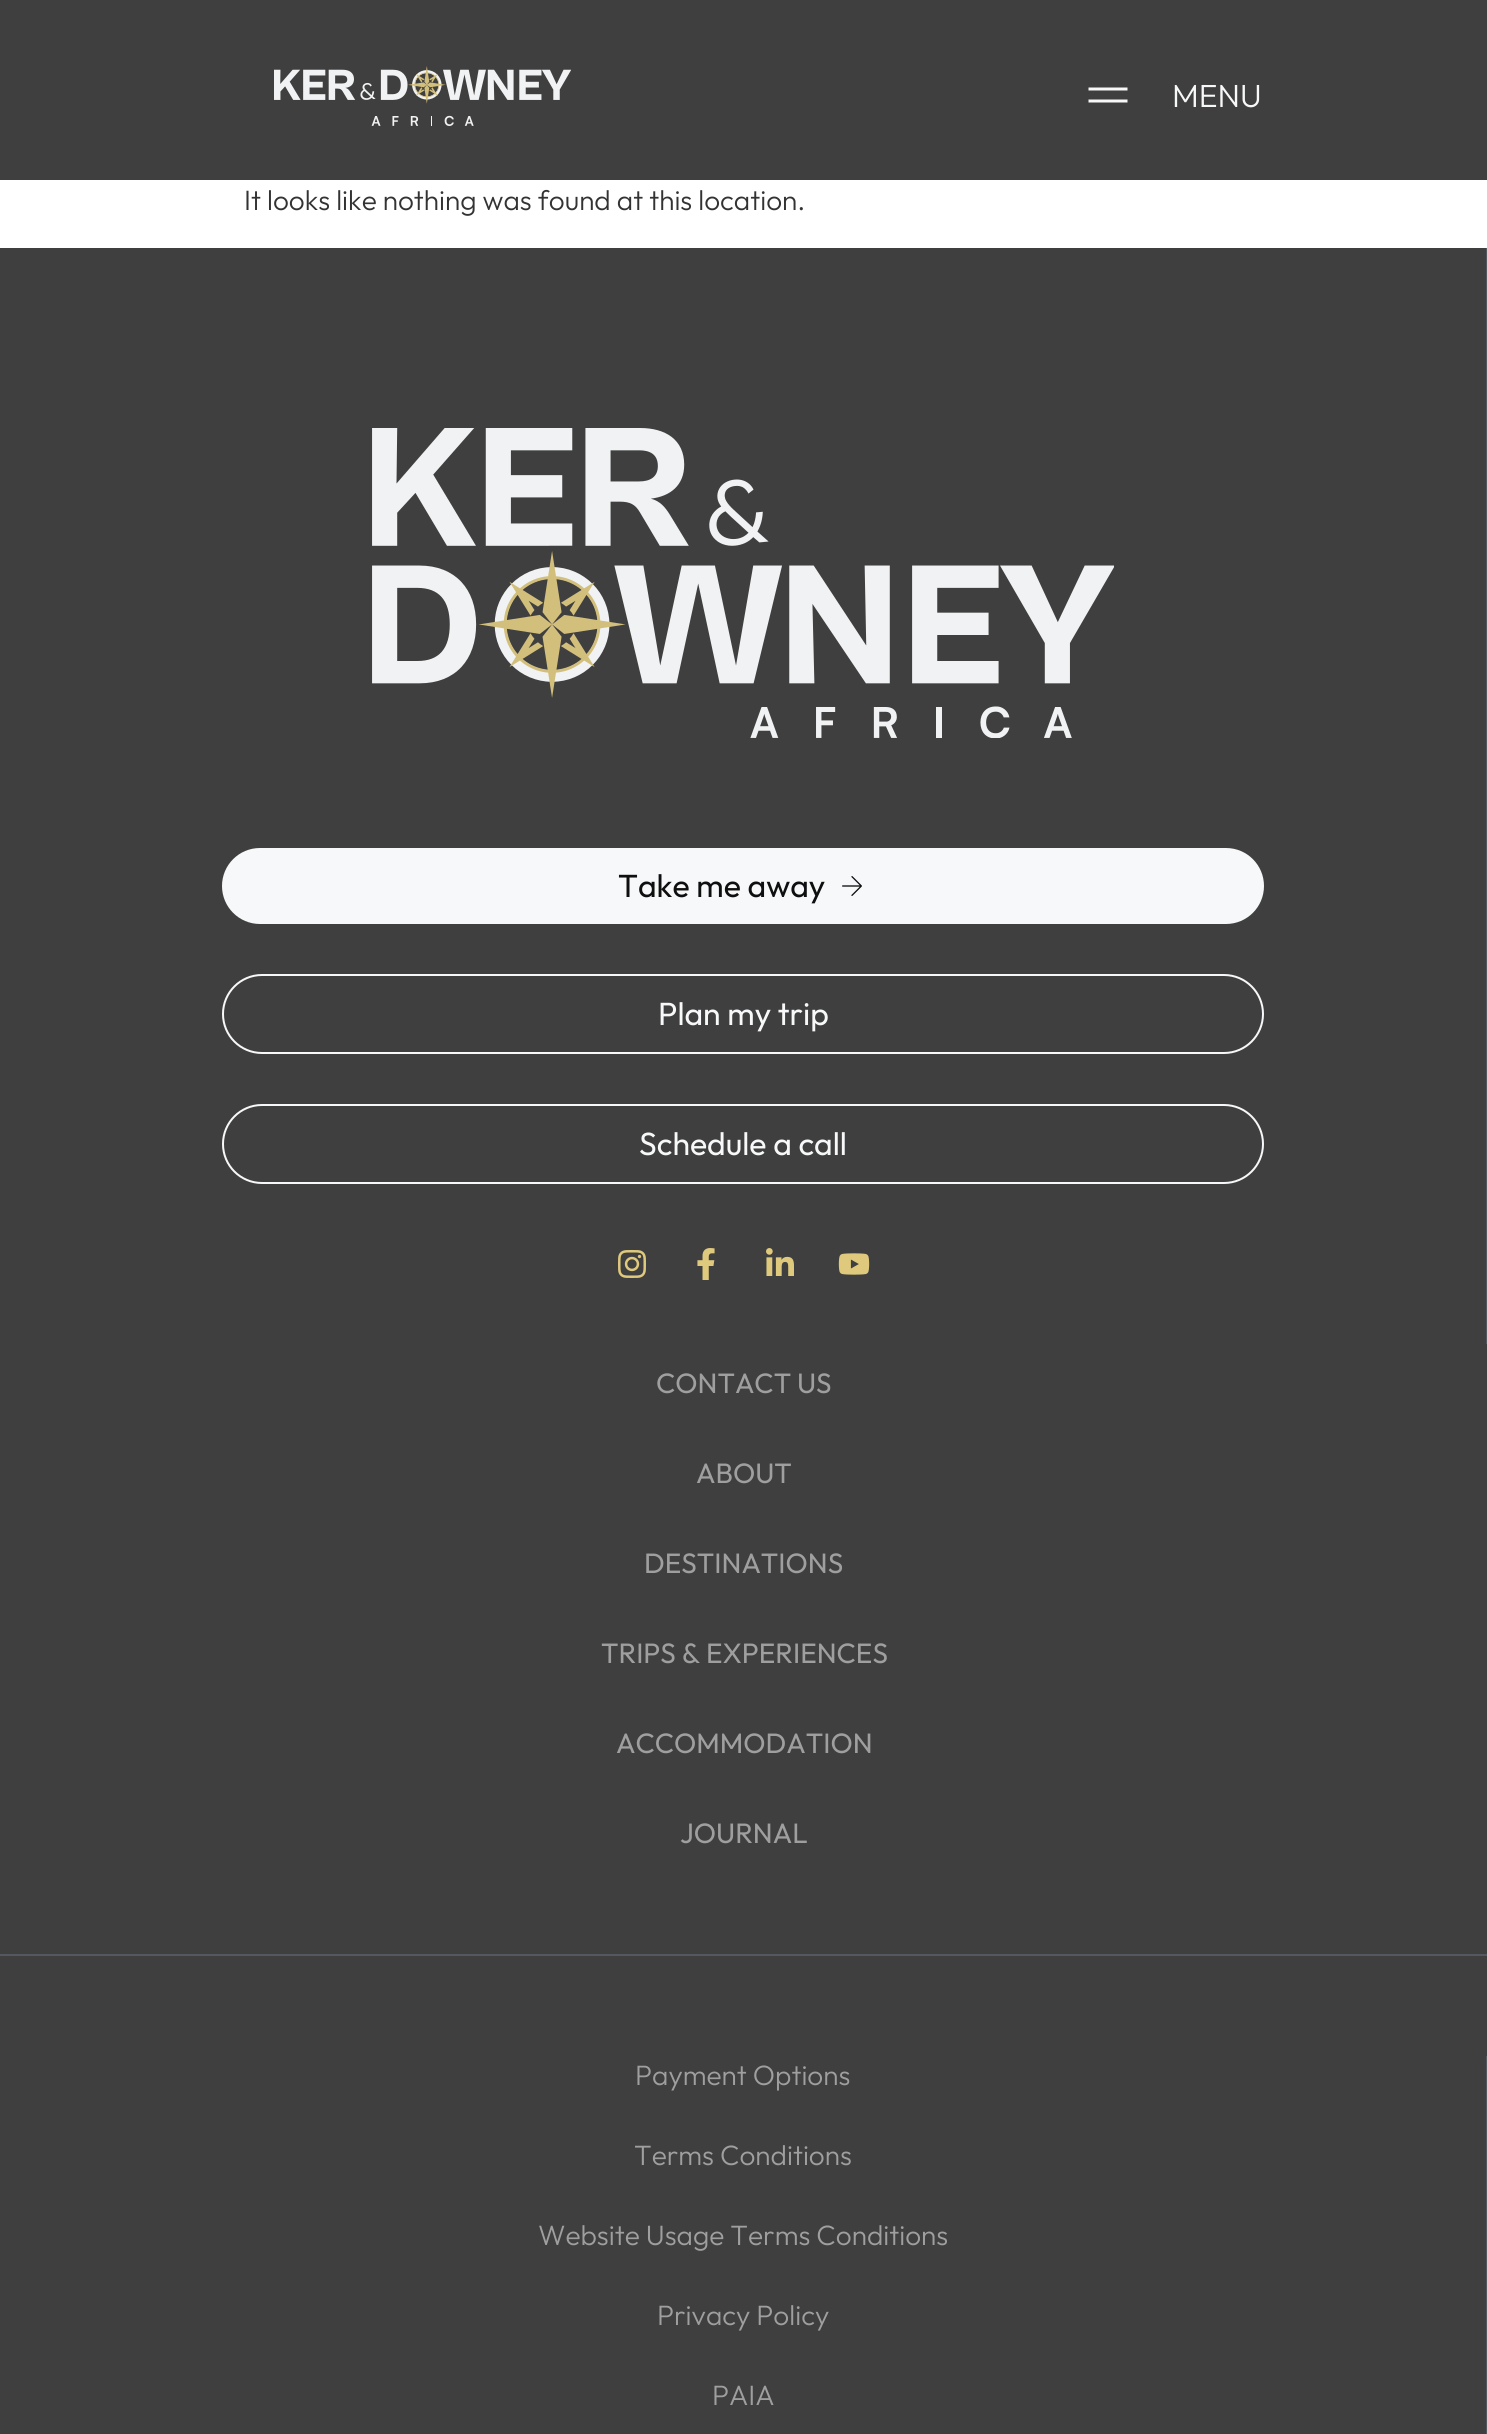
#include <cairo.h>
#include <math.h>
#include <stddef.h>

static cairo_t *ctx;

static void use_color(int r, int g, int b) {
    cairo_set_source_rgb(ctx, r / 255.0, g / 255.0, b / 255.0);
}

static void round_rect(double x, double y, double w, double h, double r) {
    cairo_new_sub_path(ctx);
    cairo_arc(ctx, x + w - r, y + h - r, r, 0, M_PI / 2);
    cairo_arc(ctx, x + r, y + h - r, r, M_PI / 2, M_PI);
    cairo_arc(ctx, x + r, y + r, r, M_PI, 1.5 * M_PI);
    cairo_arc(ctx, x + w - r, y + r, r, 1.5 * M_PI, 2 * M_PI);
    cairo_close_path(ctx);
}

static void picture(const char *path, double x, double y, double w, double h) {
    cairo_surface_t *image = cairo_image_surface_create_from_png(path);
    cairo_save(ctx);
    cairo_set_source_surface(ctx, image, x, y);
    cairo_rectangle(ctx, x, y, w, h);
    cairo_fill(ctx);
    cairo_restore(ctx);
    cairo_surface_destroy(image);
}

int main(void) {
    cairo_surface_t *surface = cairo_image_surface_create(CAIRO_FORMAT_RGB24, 1487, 2434);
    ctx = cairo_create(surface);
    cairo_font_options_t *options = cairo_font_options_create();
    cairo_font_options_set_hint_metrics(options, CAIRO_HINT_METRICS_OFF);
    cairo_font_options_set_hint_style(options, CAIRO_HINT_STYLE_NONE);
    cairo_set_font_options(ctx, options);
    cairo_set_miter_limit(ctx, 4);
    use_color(255, 255, 255);
    cairo_paint(ctx);
    use_color(63, 63, 63);
    cairo_rectangle(ctx, 0, 0, 1487, 180);
    cairo_fill(ctx);
    picture("img1.png", 274, 66, 297, 60);
    use_color(247, 248, 249);
    cairo_new_path(ctx);
    cairo_move_to(ctx, 1088.5, 87.5);
    cairo_line_to(ctx, 1088.5, 90.5);
    cairo_line_to(ctx, 1127.5, 90.5);
    cairo_line_to(ctx, 1127.5, 87.5);
    cairo_close_path(ctx);
    cairo_move_to(ctx, 1088.5, 99.5);
    cairo_line_to(ctx, 1088.5, 102.5);
    cairo_line_to(ctx, 1127.5, 102.5);
    cairo_line_to(ctx, 1127.5, 99.5);
    cairo_close_path(ctx);
    cairo_fill(ctx);
    cairo_select_font_face(ctx, "Outfit Light", CAIRO_FONT_SLANT_NORMAL, CAIRO_FONT_WEIGHT_NORMAL);
    cairo_set_font_size(ctx, 32);
    cairo_move_to(ctx, 1172, 107);
    cairo_show_text(ctx, "MENU");
    cairo_set_font_size(ctx, 28);
    use_color(51, 51, 51);
    cairo_move_to(ctx, 244, 210);
    cairo_show_text(ctx, "It looks like nothing was found at this location.");
    use_color(63, 63, 63);
    cairo_rectangle(ctx, 0, 248, 1487, 1706);
    cairo_fill(ctx);
    use_color(84, 89, 95);
    cairo_rectangle(ctx, 1486, 248, 1, 1096);
    cairo_fill(ctx);
    picture("img2.png", 372, 428, 742, 310);
    use_color(247, 248, 249);
    round_rect(222, 848, 1042, 76, 38);
    cairo_fill(ctx);
    cairo_select_font_face(ctx, "Outfit", CAIRO_FONT_SLANT_NORMAL, CAIRO_FONT_WEIGHT_NORMAL);
    cairo_set_font_size(ctx, 32);
    use_color(15, 15, 15);
    cairo_move_to(ctx, 618, 897);
    cairo_show_text(ctx, "Take me away");
    picture("img3.png", 842, 876, 20, 20);
    round_rect(223, 975, 1040, 78, 39);
    use_color(247, 248, 249);
    cairo_stroke(ctx);
    cairo_move_to(ctx, 658, 1025);
    cairo_show_text(ctx, "Plan my trip");
    round_rect(223, 1105, 1040, 78, 39);
    cairo_stroke(ctx);
    cairo_move_to(ctx, 639, 1155);
    cairo_show_text(ctx, "Schedule a call");
    picture("img4.png", 618, 1250, 28, 28);
    picture("img5.png", 697, 1248, 18, 32);
    picture("img6.png", 766, 1248, 28, 28);
    picture("img7.png", 838, 1253, 32, 22);
    cairo_set_font_size(ctx, 28);
    use_color(159, 159, 159);
    cairo_move_to(ctx, 656, 1393);
    cairo_show_text(ctx, "CONTACT US");
    cairo_move_to(ctx, 696, 1483);
    cairo_show_text(ctx, "ABOUT");
    cairo_move_to(ctx, 644, 1573);
    cairo_show_text(ctx, "DESTINATIONS");
    cairo_move_to(ctx, 601, 1663);
    cairo_show_text(ctx, "TRIPS & EXPERIENCES");
    cairo_move_to(ctx, 616, 1753);
    cairo_show_text(ctx, "ACCOMMODATION");
    cairo_move_to(ctx, 680, 1843);
    cairo_show_text(ctx, "JOURNAL");
    use_color(63, 63, 63);
    cairo_rectangle(ctx, 0, 1956, 1487, 478);
    cairo_fill(ctx);
    use_color(84, 89, 95);
    cairo_rectangle(ctx, 0, 1954, 1487, 2);
    cairo_fill(ctx);
    cairo_rectangle(ctx, 1486, 2056, 1, 378);
    cairo_fill(ctx);
    cairo_select_font_face(ctx, "Outfit Light", CAIRO_FONT_SLANT_NORMAL, CAIRO_FONT_WEIGHT_NORMAL);
    use_color(159, 159, 159);
    cairo_move_to(ctx, 635, 2085);
    cairo_show_text(ctx, "Payment Options");
    cairo_move_to(ctx, 634, 2165);
    cairo_show_text(ctx, "Terms Conditions");
    cairo_move_to(ctx, 538, 2245);
    cairo_show_text(ctx, "Website Usage Terms Conditions");
    cairo_move_to(ctx, 657, 2325);
    cairo_show_text(ctx, "Privacy Policy");
    cairo_move_to(ctx, 712, 2405);
    cairo_show_text(ctx, "PAIA");
    cairo_surface_write_to_png(surface, "result.png");
    cairo_font_options_destroy(options);
    cairo_destroy(ctx);
    cairo_surface_destroy(surface);
    return 0;
}
